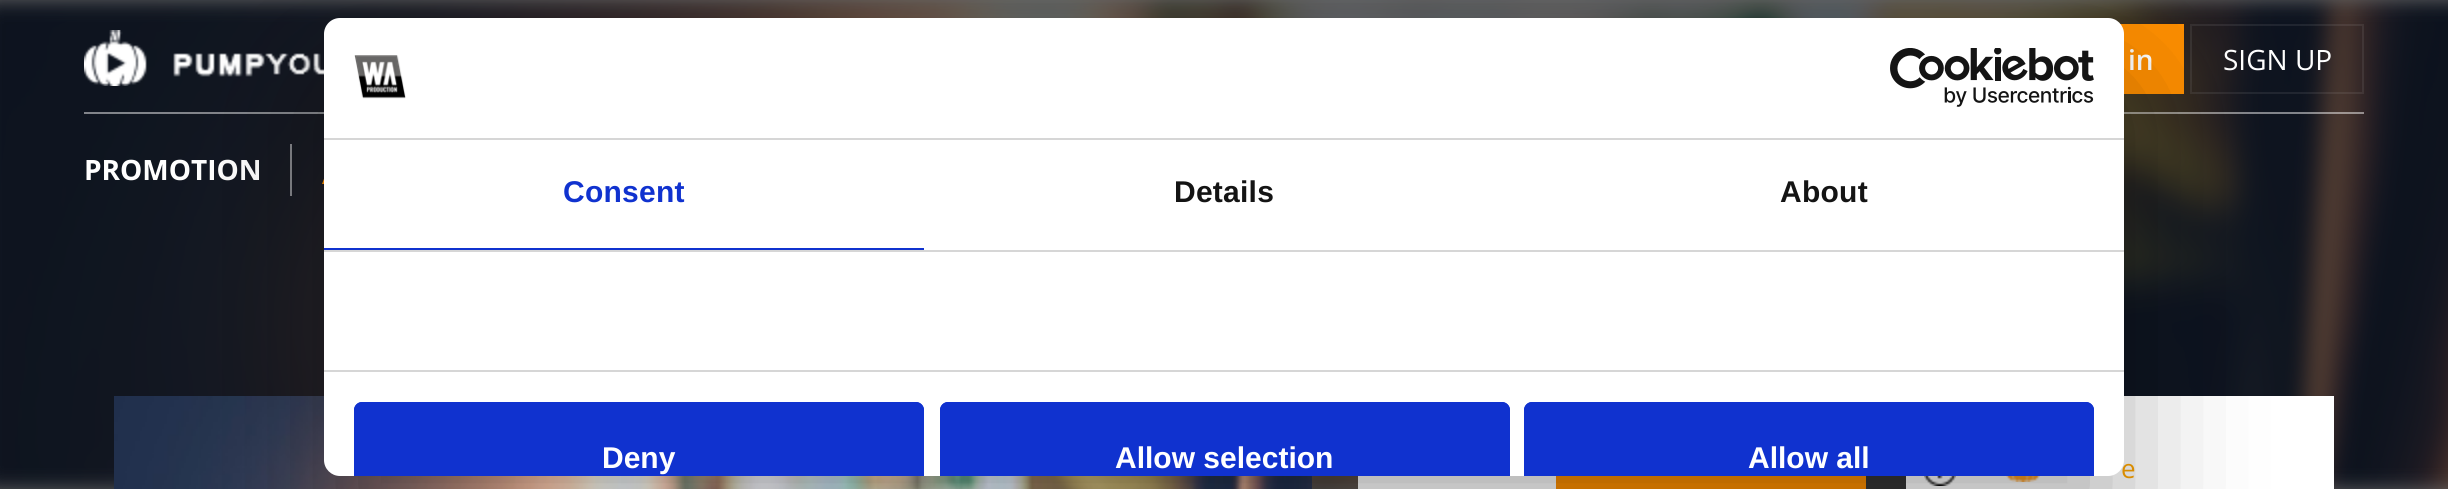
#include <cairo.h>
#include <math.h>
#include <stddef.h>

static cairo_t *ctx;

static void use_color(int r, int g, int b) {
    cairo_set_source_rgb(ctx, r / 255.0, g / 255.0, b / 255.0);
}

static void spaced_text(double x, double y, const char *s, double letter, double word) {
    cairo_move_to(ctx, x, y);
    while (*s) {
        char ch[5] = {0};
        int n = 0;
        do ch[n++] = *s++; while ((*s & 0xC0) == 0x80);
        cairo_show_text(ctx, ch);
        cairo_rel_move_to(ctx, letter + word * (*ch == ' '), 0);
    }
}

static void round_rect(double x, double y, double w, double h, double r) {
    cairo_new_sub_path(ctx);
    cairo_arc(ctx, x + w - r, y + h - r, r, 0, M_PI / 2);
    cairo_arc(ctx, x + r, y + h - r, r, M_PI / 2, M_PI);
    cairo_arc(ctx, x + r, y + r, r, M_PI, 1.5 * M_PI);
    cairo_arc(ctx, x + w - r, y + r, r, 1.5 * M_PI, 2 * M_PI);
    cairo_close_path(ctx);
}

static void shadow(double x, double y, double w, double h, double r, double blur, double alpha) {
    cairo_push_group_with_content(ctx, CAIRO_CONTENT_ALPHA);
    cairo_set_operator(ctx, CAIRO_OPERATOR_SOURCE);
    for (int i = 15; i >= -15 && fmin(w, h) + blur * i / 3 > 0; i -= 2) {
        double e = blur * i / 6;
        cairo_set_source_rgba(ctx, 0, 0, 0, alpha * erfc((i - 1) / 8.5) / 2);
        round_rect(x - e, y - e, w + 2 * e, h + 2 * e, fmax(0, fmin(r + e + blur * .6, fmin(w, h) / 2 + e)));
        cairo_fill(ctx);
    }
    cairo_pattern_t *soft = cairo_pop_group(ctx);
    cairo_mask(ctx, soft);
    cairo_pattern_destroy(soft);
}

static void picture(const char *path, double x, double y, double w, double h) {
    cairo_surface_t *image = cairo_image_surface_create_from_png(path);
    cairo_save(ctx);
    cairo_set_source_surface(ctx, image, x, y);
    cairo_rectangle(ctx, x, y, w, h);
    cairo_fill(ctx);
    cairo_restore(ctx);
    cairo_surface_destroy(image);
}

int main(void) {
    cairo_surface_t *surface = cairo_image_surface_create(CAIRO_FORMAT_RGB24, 2448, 489);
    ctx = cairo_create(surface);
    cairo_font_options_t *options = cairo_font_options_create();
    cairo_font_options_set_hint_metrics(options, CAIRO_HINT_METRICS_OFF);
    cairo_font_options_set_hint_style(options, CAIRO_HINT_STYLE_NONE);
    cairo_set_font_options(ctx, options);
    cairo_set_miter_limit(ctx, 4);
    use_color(102, 102, 102);
    cairo_paint(ctx);
    picture("img2.png", 0, 0, 2448, 489);
    picture("img1.png", 84, 30, 240, 56);
    cairo_set_source_rgba(ctx, 1, 1, 1, 0.48);
    cairo_rectangle(ctx, 84, 112, 2280, 2);
    cairo_fill(ctx);
    use_color(255, 143, 0);
    cairo_rectangle(ctx, 2120, 24, 64, 70);
    cairo_fill(ctx);
    cairo_select_font_face(ctx, "Open Sans SemiBold", CAIRO_FONT_SLANT_NORMAL, CAIRO_FONT_WEIGHT_NORMAL);
    cairo_set_font_size(ctx, 28);
    use_color(255, 255, 255);
    cairo_move_to(ctx, 2128, 70);
    cairo_show_text(ctx, "in");
    cairo_rectangle(ctx, 2191, 25, 172, 68);
    cairo_set_source_rgba(ctx, 0.792, 0.792, 0.792, 0.1);
    cairo_stroke(ctx);
    cairo_select_font_face(ctx, "Open Sans", CAIRO_FONT_SLANT_NORMAL, CAIRO_FONT_WEIGHT_NORMAL);
    use_color(255, 255, 255);
    cairo_move_to(ctx, 2223, 70);
    cairo_show_text(ctx, "SIGN UP");
    use_color(135, 136, 140);
    cairo_rectangle(ctx, 290, 144, 2, 52);
    cairo_fill(ctx);
    cairo_select_font_face(ctx, "Open Sans", CAIRO_FONT_SLANT_NORMAL, CAIRO_FONT_WEIGHT_BOLD);
    use_color(255, 255, 255);
    cairo_move_to(ctx, 84, 180);
    cairo_show_text(ctx, "PROMOTION");
    use_color(255, 143, 0);
    cairo_new_path(ctx);
    cairo_move_to(ctx, 332, 158);
    cairo_line_to(ctx, 395, 158);
    cairo_line_to(ctx, 386, 184);
    cairo_line_to(ctx, 322, 184);
    cairo_close_path(ctx);
    cairo_fill(ctx);
    picture("img3.png", 114, 396, 1198, 93);
    use_color(255, 255, 255);
    cairo_rectangle(ctx, 1358, 396, 976, 93);
    cairo_fill(ctx);
    picture("img4.png", 2006, 476, 34, 6);
    cairo_select_font_face(ctx, "Open Sans", CAIRO_FONT_SLANT_NORMAL, CAIRO_FONT_WEIGHT_NORMAL);
    cairo_set_font_size(ctx, 26);
    use_color(255, 165, 0);
    cairo_move_to(ctx, 2121, 478);
    cairo_show_text(ctx, "e");
    use_color(255, 143, 0);
    cairo_rectangle(ctx, 1556, 476, 310, 13);
    cairo_fill(ctx);
    use_color(53, 53, 53);
    cairo_rectangle(ctx, 1866, 476, 40, 13);
    cairo_fill(ctx);
    picture("img5.png", 1924, 476, 32, 10);
    use_color(0, 0, 0);
    shadow(324, 82, 1800, 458, 16, 68, 0.3);
    use_color(255, 255, 255);
    round_rect(324, 18, 1800, 458, 16);
    cairo_fill(ctx);
    use_color(214, 214, 214);
    cairo_rectangle(ctx, 324, 138, 1800, 2);
    cairo_fill(ctx);
    picture("img6.png", 354, 55, 52, 44);
    picture("img7.png", 1890, 48, 204, 59);
    cairo_rectangle(ctx, 324, 250, 1800, 2);
    cairo_fill(ctx);
    use_color(16, 50, 207);
    cairo_rectangle(ctx, 324, 248, 600, 2);
    cairo_fill(ctx);
    cairo_select_font_face(ctx, "Liberation Sans", CAIRO_FONT_SLANT_NORMAL, CAIRO_FONT_WEIGHT_BOLD);
    cairo_set_font_size(ctx, 30);
    spaced_text(563, 202, "Consent", 0.25, 0);
    use_color(20, 20, 20);
    spaced_text(1174, 202, "Details", 0.25, 0);
    spaced_text(1780, 202, "About", 0.25, 0);
    use_color(214, 214, 214);
    cairo_rectangle(ctx, 324, 370, 1800, 2);
    cairo_fill(ctx);
    use_color(16, 50, 207);
    cairo_new_path(ctx);
    cairo_move_to(ctx, 362, 402);
    cairo_line_to(ctx, 916, 402);
    cairo_curve_to(ctx, 920.5, 402, 924, 405.5, 924, 410);
    cairo_line_to(ctx, 924, 476);
    cairo_line_to(ctx, 354, 476);
    cairo_line_to(ctx, 354, 410);
    cairo_curve_to(ctx, 354, 405.5, 357.5, 402, 362, 402);
    cairo_close_path(ctx);
    cairo_fill(ctx);
    cairo_new_path(ctx);
    cairo_move_to(ctx, 362, 402);
    cairo_curve_to(ctx, 358, 402, 354, 406, 354, 410);
    cairo_line_to(ctx, 354, 476);
    cairo_line_to(ctx, 358, 476);
    cairo_line_to(ctx, 358, 410);
    cairo_curve_to(ctx, 358, 408, 360, 406, 362, 406);
    cairo_line_to(ctx, 916, 406);
    cairo_curve_to(ctx, 918, 406, 920, 408, 920, 410);
    cairo_line_to(ctx, 920, 476);
    cairo_line_to(ctx, 924, 476);
    cairo_line_to(ctx, 924, 410);
    cairo_curve_to(ctx, 924, 406, 920, 402, 916, 402);
    cairo_close_path(ctx);
    cairo_fill(ctx);
    use_color(255, 255, 255);
    cairo_move_to(ctx, 602, 468);
    cairo_show_text(ctx, "Deny");
    use_color(16, 50, 207);
    cairo_new_path(ctx);
    cairo_move_to(ctx, 948, 402);
    cairo_line_to(ctx, 1502, 402);
    cairo_curve_to(ctx, 1506.5, 402, 1510, 405.5, 1510, 410);
    cairo_line_to(ctx, 1510, 476);
    cairo_line_to(ctx, 940, 476);
    cairo_line_to(ctx, 940, 410);
    cairo_curve_to(ctx, 940, 405.5, 943.5, 402, 948, 402);
    cairo_close_path(ctx);
    cairo_fill(ctx);
    cairo_new_path(ctx);
    cairo_move_to(ctx, 948, 402);
    cairo_curve_to(ctx, 944, 402, 940, 406, 940, 410);
    cairo_line_to(ctx, 940, 476);
    cairo_line_to(ctx, 944, 476);
    cairo_line_to(ctx, 944, 410);
    cairo_curve_to(ctx, 944, 408, 946, 406, 948, 406);
    cairo_line_to(ctx, 1502, 406);
    cairo_curve_to(ctx, 1504, 406, 1506, 408, 1506, 410);
    cairo_line_to(ctx, 1506, 476);
    cairo_line_to(ctx, 1510, 476);
    cairo_line_to(ctx, 1510, 410);
    cairo_curve_to(ctx, 1510, 406, 1506, 402, 1502, 402);
    cairo_close_path(ctx);
    cairo_fill(ctx);
    use_color(255, 255, 255);
    cairo_move_to(ctx, 1115, 468);
    cairo_show_text(ctx, "Allow selection");
    use_color(16, 50, 207);
    cairo_new_path(ctx);
    cairo_move_to(ctx, 1532, 402);
    cairo_line_to(ctx, 2086, 402);
    cairo_curve_to(ctx, 2090.5, 402, 2094, 405.5, 2094, 410);
    cairo_line_to(ctx, 2094, 476);
    cairo_line_to(ctx, 1524, 476);
    cairo_line_to(ctx, 1524, 410);
    cairo_curve_to(ctx, 1524, 405.5, 1527.5, 402, 1532, 402);
    cairo_close_path(ctx);
    cairo_fill(ctx);
    cairo_new_path(ctx);
    cairo_move_to(ctx, 1532, 402);
    cairo_curve_to(ctx, 1528, 402, 1524, 406, 1524, 410);
    cairo_line_to(ctx, 1524, 476);
    cairo_line_to(ctx, 1528, 476);
    cairo_line_to(ctx, 1528, 410);
    cairo_curve_to(ctx, 1528, 408, 1530, 406, 1532, 406);
    cairo_line_to(ctx, 2086, 406);
    cairo_curve_to(ctx, 2088, 406, 2090, 408, 2090, 410);
    cairo_line_to(ctx, 2090, 476);
    cairo_line_to(ctx, 2094, 476);
    cairo_line_to(ctx, 2094, 410);
    cairo_curve_to(ctx, 2094, 406, 2090, 402, 2086, 402);
    cairo_close_path(ctx);
    cairo_fill(ctx);
    use_color(255, 255, 255);
    cairo_move_to(ctx, 1748, 468);
    cairo_show_text(ctx, "Allow all");
    cairo_surface_write_to_png(surface, "result.png");
    cairo_font_options_destroy(options);
    cairo_destroy(ctx);
    cairo_surface_destroy(surface);
    return 0;
}
